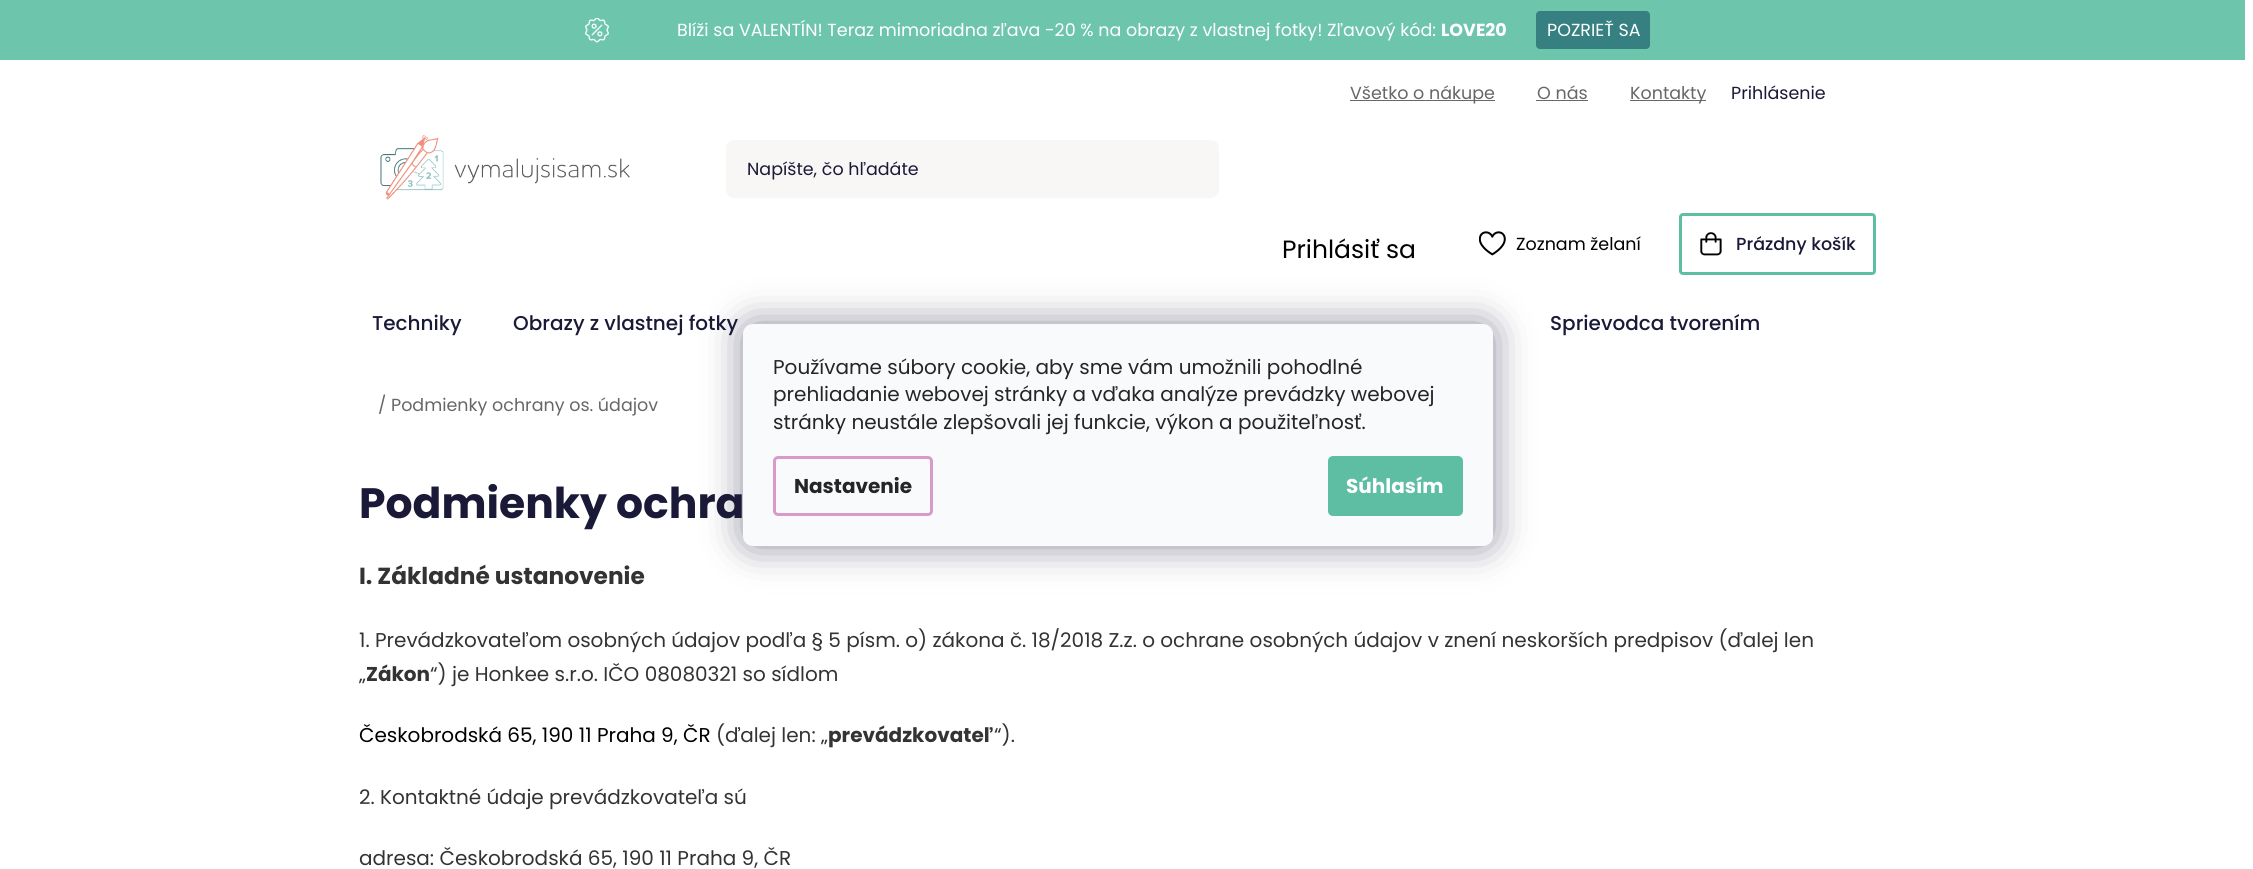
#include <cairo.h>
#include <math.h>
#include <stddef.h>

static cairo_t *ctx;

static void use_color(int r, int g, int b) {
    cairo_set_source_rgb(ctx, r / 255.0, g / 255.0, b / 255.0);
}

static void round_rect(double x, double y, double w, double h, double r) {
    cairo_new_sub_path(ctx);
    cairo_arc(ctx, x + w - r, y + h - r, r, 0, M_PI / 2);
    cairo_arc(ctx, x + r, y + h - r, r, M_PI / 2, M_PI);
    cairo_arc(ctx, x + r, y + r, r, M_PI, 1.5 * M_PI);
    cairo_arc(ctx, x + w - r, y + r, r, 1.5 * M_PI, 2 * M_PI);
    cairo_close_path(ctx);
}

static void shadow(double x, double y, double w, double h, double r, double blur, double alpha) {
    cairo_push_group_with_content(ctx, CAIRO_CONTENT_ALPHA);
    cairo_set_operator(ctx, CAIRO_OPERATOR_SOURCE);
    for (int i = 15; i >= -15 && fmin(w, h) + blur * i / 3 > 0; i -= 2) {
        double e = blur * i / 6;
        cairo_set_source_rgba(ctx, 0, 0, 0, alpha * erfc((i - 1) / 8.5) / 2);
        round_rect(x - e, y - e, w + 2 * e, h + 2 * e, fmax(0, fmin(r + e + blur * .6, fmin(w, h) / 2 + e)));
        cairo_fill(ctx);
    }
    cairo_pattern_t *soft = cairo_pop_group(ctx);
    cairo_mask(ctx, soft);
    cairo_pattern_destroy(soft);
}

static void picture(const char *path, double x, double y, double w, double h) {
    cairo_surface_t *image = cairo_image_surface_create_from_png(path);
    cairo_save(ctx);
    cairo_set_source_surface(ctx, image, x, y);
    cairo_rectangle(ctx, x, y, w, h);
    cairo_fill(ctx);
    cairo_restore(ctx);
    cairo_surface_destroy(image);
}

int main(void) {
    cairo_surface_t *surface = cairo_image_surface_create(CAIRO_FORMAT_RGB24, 2253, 869);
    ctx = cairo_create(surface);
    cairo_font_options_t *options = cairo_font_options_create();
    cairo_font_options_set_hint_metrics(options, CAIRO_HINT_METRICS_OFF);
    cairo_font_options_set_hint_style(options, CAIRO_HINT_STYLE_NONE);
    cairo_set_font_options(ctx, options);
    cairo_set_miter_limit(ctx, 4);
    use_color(255, 255, 255);
    cairo_paint(ctx);
    use_color(109, 197, 172);
    cairo_rectangle(ctx, 0, 0, 2245, 60);
    cairo_fill(ctx);
    picture("img1.png", 585, 18, 24, 25);
    cairo_select_font_face(ctx, "Poppins", CAIRO_FONT_SLANT_NORMAL, CAIRO_FONT_WEIGHT_NORMAL);
    cairo_set_font_size(ctx, 17.5);
    use_color(255, 255, 255);
    cairo_move_to(ctx, 677, 36);
    cairo_show_text(ctx, "Blíži sa VALENTÍN! Teraz mimoriadna zľava -20 % na obrazy z vlastnej fotky! Zľavový kód:");
    cairo_select_font_face(ctx, "Poppins", CAIRO_FONT_SLANT_NORMAL, CAIRO_FONT_WEIGHT_BOLD);
    cairo_move_to(ctx, 1441, 36);
    cairo_show_text(ctx, "LOVE20");
    use_color(54, 128, 130);
    round_rect(1536, 11, 114, 38, 4);
    cairo_fill(ctx);
    cairo_select_font_face(ctx, "Poppins", CAIRO_FONT_SLANT_NORMAL, CAIRO_FONT_WEIGHT_NORMAL);
    use_color(255, 255, 255);
    cairo_move_to(ctx, 1547, 36);
    cairo_show_text(ctx, "POZRIEŤ SA");
    use_color(103, 103, 103);
    cairo_rectangle(ctx, 1350, 100, 145, 1);
    cairo_fill(ctx);
    cairo_move_to(ctx, 1350, 99);
    cairo_show_text(ctx, "Všetko o nákupe");
    cairo_move_to(ctx, 1537, 99);
    cairo_show_text(ctx, "O nás");
    cairo_rectangle(ctx, 1536, 100, 52, 1);
    cairo_fill(ctx);
    cairo_rectangle(ctx, 1630, 100, 76, 1);
    cairo_fill(ctx);
    cairo_move_to(ctx, 1630, 99);
    cairo_show_text(ctx, "Kontakty");
    use_color(26, 25, 55);
    cairo_move_to(ctx, 1731, 99);
    cairo_show_text(ctx, "Prihlásenie");
    picture("img2.png", 380, 135, 250, 65);
    use_color(249, 247, 246);
    round_rect(726, 140, 493, 58, 8);
    cairo_fill(ctx);
    use_color(26, 25, 55);
    cairo_move_to(ctx, 747, 175);
    cairo_show_text(ctx, "Napíšte, čo hľadáte");
    cairo_set_font_size(ctx, 25);
    use_color(0, 0, 0);
    cairo_move_to(ctx, 1282, 258);
    cairo_show_text(ctx, "Prihlásiť sa");
    picture("img3.png", 1479, 231, 27, 25);
    cairo_set_font_size(ctx, 17.5);
    cairo_move_to(ctx, 1516, 250);
    cairo_show_text(ctx, "Zoznam želaní");
    round_rect(1680.5, 214.5, 194, 59, 2.5);
    use_color(93, 190, 163);
    cairo_set_line_width(ctx, 3);
    cairo_stroke(ctx);
    picture("img4.png", 1700, 232, 22, 24);
    cairo_select_font_face(ctx, "Poppins Medium", CAIRO_FONT_SLANT_NORMAL, CAIRO_FONT_WEIGHT_NORMAL);
    use_color(26, 25, 55);
    cairo_move_to(ctx, 1736, 250);
    cairo_show_text(ctx, "Prázdny košík");
    cairo_set_font_size(ctx, 20);
    cairo_move_to(ctx, 372, 330);
    cairo_show_text(ctx, "Techniky");
    cairo_move_to(ctx, 513, 330);
    cairo_show_text(ctx, "Obrazy z vlastnej fotky");
    cairo_move_to(ctx, 1550, 330);
    cairo_show_text(ctx, "Sprievodca tvorením");
    cairo_select_font_face(ctx, "Poppins", CAIRO_FONT_SLANT_NORMAL, CAIRO_FONT_WEIGHT_NORMAL);
    cairo_set_font_size(ctx, 17.5);
    use_color(103, 103, 103);
    cairo_move_to(ctx, 378, 411);
    cairo_show_text(ctx, "/ Podmienky ochrany os. údajov");
    cairo_select_font_face(ctx, "Poppins", CAIRO_FONT_SLANT_NORMAL, CAIRO_FONT_WEIGHT_BOLD);
    cairo_set_font_size(ctx, 42.5);
    use_color(26, 25, 55);
    cairo_move_to(ctx, 359, 518);
    cairo_show_text(ctx, "Podmienky ochra");
    cairo_set_font_size(ctx, 23.25);
    use_color(51, 51, 51);
    cairo_move_to(ctx, 359, 584);
    cairo_show_text(ctx, "I. Základné ustanovenie");
    cairo_select_font_face(ctx, "Poppins", CAIRO_FONT_SLANT_NORMAL, CAIRO_FONT_WEIGHT_NORMAL);
    cairo_set_font_size(ctx, 20);
    cairo_move_to(ctx, 359, 647);
    cairo_show_text(ctx, "1. Prevádzkovateľom osobných údajov podľa § 5 písm. o) zákona č. 18/2018 Z.z. o ochrane osobných údajov v znení neskorších predpisov (ďalej len");
    cairo_move_to(ctx, 359, 681);
    cairo_show_text(ctx, "„");
    cairo_select_font_face(ctx, "Poppins", CAIRO_FONT_SLANT_NORMAL, CAIRO_FONT_WEIGHT_BOLD);
    cairo_move_to(ctx, 366, 681);
    cairo_show_text(ctx, "Zákon");
    cairo_select_font_face(ctx, "Poppins", CAIRO_FONT_SLANT_NORMAL, CAIRO_FONT_WEIGHT_NORMAL);
    cairo_move_to(ctx, 430, 681);
    cairo_show_text(ctx, "“) je Honkee s.r.o. IČO 08080321 so sídlom");
    use_color(0, 0, 0);
    cairo_move_to(ctx, 359, 742);
    cairo_show_text(ctx, "Českobrodská 65, 190 11 Praha 9, ČR");
    use_color(51, 51, 51);
    cairo_move_to(ctx, 716, 742);
    cairo_show_text(ctx, "(ďalej len: „");
    cairo_select_font_face(ctx, "Poppins", CAIRO_FONT_SLANT_NORMAL, CAIRO_FONT_WEIGHT_BOLD);
    cairo_move_to(ctx, 828, 742);
    cairo_show_text(ctx, "prevádzkovateľ");
    cairo_select_font_face(ctx, "Poppins", CAIRO_FONT_SLANT_NORMAL, CAIRO_FONT_WEIGHT_NORMAL);
    cairo_move_to(ctx, 994, 742);
    cairo_show_text(ctx, "“).");
    cairo_move_to(ctx, 359, 804);
    cairo_show_text(ctx, "2. Kontaktné údaje prevádzkovateľa sú");
    cairo_move_to(ctx, 359, 865);
    cairo_show_text(ctx, "adresa: Českobrodská 65, 190 11 Praha 9, ČR");
    use_color(27, 25, 57);
    shadow(743, 324, 750, 222, 10, 19, 0.5);
    use_color(248, 250, 251);
    round_rect(743, 324, 750, 222, 10);
    cairo_fill(ctx);
    use_color(37, 37, 37);
    cairo_move_to(ctx, 773, 374);
    cairo_show_text(ctx, "Používame súbory cookie, aby sme vám umožnili pohodlné");
    cairo_move_to(ctx, 773, 401);
    cairo_show_text(ctx, "prehliadanie webovej stránky a vďaka analýze prevádzky webovej");
    cairo_move_to(ctx, 773, 429);
    cairo_show_text(ctx, "stránky neustále zlepšovali jej funkcie, výkon a použiteľnosť.");
    round_rect(774.5, 457.5, 157, 57, 3.5);
    use_color(217, 154, 202);
    cairo_stroke(ctx);
    cairo_select_font_face(ctx, "Poppins", CAIRO_FONT_SLANT_NORMAL, CAIRO_FONT_WEIGHT_BOLD);
    use_color(37, 37, 37);
    cairo_move_to(ctx, 794, 493);
    cairo_show_text(ctx, "Nastavenie");
    use_color(93, 190, 163);
    round_rect(1328, 456, 135, 60, 5);
    cairo_fill(ctx);
    use_color(255, 255, 255);
    cairo_move_to(ctx, 1346, 493);
    cairo_show_text(ctx, "Súhlasím");
    cairo_surface_write_to_png(surface, "result.png");
    cairo_font_options_destroy(options);
    cairo_destroy(ctx);
    cairo_surface_destroy(surface);
    return 0;
}
